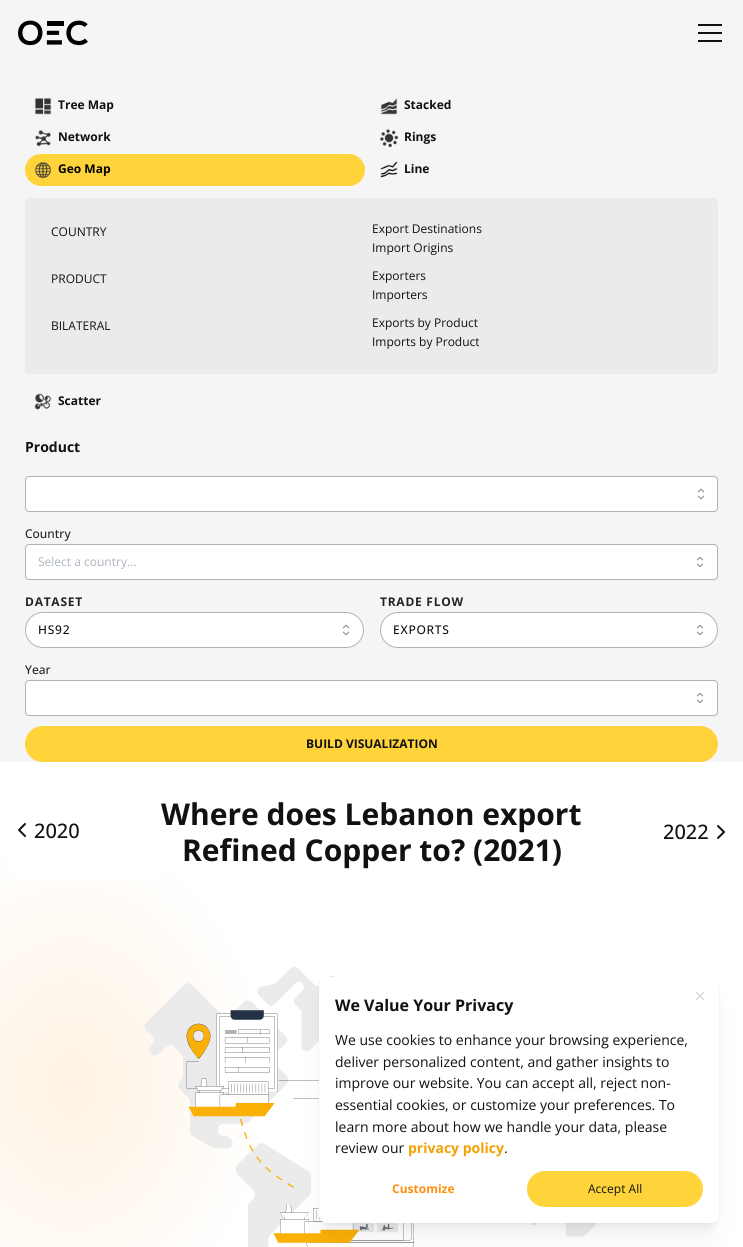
#include <cairo.h>
#include <math.h>
#include <stddef.h>

static cairo_t *ctx;

static void use_color(int r, int g, int b) {
    cairo_set_source_rgb(ctx, r / 255.0, g / 255.0, b / 255.0);
}

static void spaced_text(double x, double y, const char *s, double letter, double word) {
    cairo_move_to(ctx, x, y);
    while (*s) {
        char ch[5] = {0};
        int n = 0;
        do ch[n++] = *s++; while ((*s & 0xC0) == 0x80);
        cairo_show_text(ctx, ch);
        cairo_rel_move_to(ctx, letter + word * (*ch == ' '), 0);
    }
}

static void round_rect(double x, double y, double w, double h, double r) {
    cairo_new_sub_path(ctx);
    cairo_arc(ctx, x + w - r, y + h - r, r, 0, M_PI / 2);
    cairo_arc(ctx, x + r, y + h - r, r, M_PI / 2, M_PI);
    cairo_arc(ctx, x + r, y + r, r, M_PI, 1.5 * M_PI);
    cairo_arc(ctx, x + w - r, y + r, r, 1.5 * M_PI, 2 * M_PI);
    cairo_close_path(ctx);
}

static void shadow(double x, double y, double w, double h, double r, double blur, double alpha) {
    cairo_push_group_with_content(ctx, CAIRO_CONTENT_ALPHA);
    cairo_set_operator(ctx, CAIRO_OPERATOR_SOURCE);
    for (int i = 15; i >= -15 && fmin(w, h) + blur * i / 3 > 0; i -= 2) {
        double e = blur * i / 6;
        cairo_set_source_rgba(ctx, 0, 0, 0, alpha * erfc((i - 1) / 8.5) / 2);
        round_rect(x - e, y - e, w + 2 * e, h + 2 * e, fmax(0, fmin(r + e + blur * .6, fmin(w, h) / 2 + e)));
        cairo_fill(ctx);
    }
    cairo_pattern_t *soft = cairo_pop_group(ctx);
    cairo_mask(ctx, soft);
    cairo_pattern_destroy(soft);
}

static void picture(const char *path, double x, double y, double w, double h) {
    cairo_surface_t *image = cairo_image_surface_create_from_png(path);
    cairo_save(ctx);
    cairo_set_source_surface(ctx, image, x, y);
    cairo_rectangle(ctx, x, y, w, h);
    cairo_fill(ctx);
    cairo_restore(ctx);
    cairo_surface_destroy(image);
}

int main(void) {
    cairo_surface_t *surface = cairo_image_surface_create(CAIRO_FORMAT_RGB24, 743, 1247);
    ctx = cairo_create(surface);
    cairo_font_options_t *options = cairo_font_options_create();
    cairo_font_options_set_hint_metrics(options, CAIRO_HINT_METRICS_OFF);
    cairo_font_options_set_hint_style(options, CAIRO_HINT_STYLE_NONE);
    cairo_set_font_options(ctx, options);
    cairo_set_miter_limit(ctx, 4);
    cairo_pattern_t *gradient;
    use_color(255, 255, 255);
    cairo_paint(ctx);
    use_color(245, 245, 245);
    cairo_rectangle(ctx, 0, 0, 743, 762);
    cairo_fill(ctx);
    picture("img1.png", 18, 20, 70, 26);
    use_color(16, 17, 18);
    cairo_rectangle(ctx, 698, 32, 24, 2);
    cairo_fill(ctx);
    cairo_rectangle(ctx, 698, 24, 24, 2);
    cairo_fill(ctx);
    cairo_rectangle(ctx, 698, 40, 24, 2);
    cairo_fill(ctx);
    picture("img2.png", 34, 98, 18, 17);
    cairo_select_font_face(ctx, "Open Sans", CAIRO_FONT_SLANT_NORMAL, CAIRO_FONT_WEIGHT_BOLD);
    cairo_set_font_size(ctx, 12);
    cairo_move_to(ctx, 58, 109);
    cairo_show_text(ctx, "Tree Map");
    picture("img3.png", 380, 98, 18, 17);
    cairo_move_to(ctx, 404, 109);
    cairo_show_text(ctx, "Stacked");
    picture("img4.png", 35, 130, 16, 17);
    cairo_move_to(ctx, 58, 141);
    cairo_show_text(ctx, "Network");
    picture("img5.png", 380, 129, 18, 19);
    cairo_move_to(ctx, 404, 141);
    cairo_show_text(ctx, "Rings");
    use_color(255, 212, 59);
    round_rect(25, 154, 340, 32, 16);
    cairo_fill(ctx);
    picture("img6.png", 34, 162, 18, 17);
    use_color(0, 0, 0);
    cairo_move_to(ctx, 58, 173);
    cairo_show_text(ctx, "Geo Map");
    picture("img7.png", 380, 161, 18, 17);
    use_color(16, 17, 18);
    cairo_move_to(ctx, 404, 173);
    cairo_show_text(ctx, "Line");
    use_color(235, 235, 235);
    round_rect(25, 198, 693, 176, 4);
    cairo_fill(ctx);
    cairo_select_font_face(ctx, "Open Sans", CAIRO_FONT_SLANT_NORMAL, CAIRO_FONT_WEIGHT_NORMAL);
    use_color(16, 17, 18);
    cairo_move_to(ctx, 51, 236);
    cairo_show_text(ctx, "COUNTRY");
    cairo_move_to(ctx, 372, 233);
    cairo_show_text(ctx, "Export Destinations");
    cairo_move_to(ctx, 372, 252);
    cairo_show_text(ctx, "Import Origins");
    cairo_move_to(ctx, 51, 283);
    cairo_show_text(ctx, "PRODUCT");
    cairo_move_to(ctx, 372, 280);
    cairo_show_text(ctx, "Exporters");
    cairo_move_to(ctx, 372, 299);
    cairo_show_text(ctx, "Importers");
    cairo_move_to(ctx, 51, 330);
    cairo_show_text(ctx, "BILATERAL");
    cairo_move_to(ctx, 372, 327);
    cairo_show_text(ctx, "Exports by Product");
    cairo_move_to(ctx, 372, 346);
    cairo_show_text(ctx, "Imports by Product");
    picture("img8.png", 34, 393, 18, 17);
    cairo_select_font_face(ctx, "Open Sans", CAIRO_FONT_SLANT_NORMAL, CAIRO_FONT_WEIGHT_BOLD);
    cairo_move_to(ctx, 58, 405);
    cairo_show_text(ctx, "Scatter");
    cairo_set_font_size(ctx, 14);
    cairo_move_to(ctx, 25, 452);
    cairo_show_text(ctx, "Product");
    use_color(255, 255, 255);
    round_rect(25.5, 476.5, 692, 35, 3.5);
    cairo_fill_preserve(ctx);
    use_color(180, 180, 180);
    cairo_set_line_width(ctx, 1);
    cairo_stroke(ctx);
    picture("img9.png", 697, 488, 8, 12);
    cairo_select_font_face(ctx, "Open Sans Medium", CAIRO_FONT_SLANT_NORMAL, CAIRO_FONT_WEIGHT_NORMAL);
    cairo_set_font_size(ctx, 12);
    use_color(33, 37, 41);
    cairo_move_to(ctx, 25, 538);
    cairo_show_text(ctx, "Country");
    use_color(255, 255, 255);
    round_rect(25.5, 544.5, 692, 35, 3.5);
    cairo_fill_preserve(ctx);
    use_color(180, 180, 180);
    cairo_stroke(ctx);
    cairo_select_font_face(ctx, "Open Sans", CAIRO_FONT_SLANT_NORMAL, CAIRO_FONT_WEIGHT_NORMAL);
    use_color(173, 181, 189);
    cairo_move_to(ctx, 38, 566);
    cairo_show_text(ctx, "Select a country...");
    picture("img9.png", 696, 556, 8, 12);
    cairo_select_font_face(ctx, "Open Sans", CAIRO_FONT_SLANT_NORMAL, CAIRO_FONT_WEIGHT_BOLD);
    use_color(33, 37, 41);
    spaced_text(25, 606, "DATASET", 0.75, 0);
    use_color(255, 255, 255);
    round_rect(25.5, 612.5, 338, 35, 17.5);
    cairo_fill_preserve(ctx);
    use_color(180, 180, 180);
    cairo_stroke(ctx);
    cairo_select_font_face(ctx, "Open Sans Medium", CAIRO_FONT_SLANT_NORMAL, CAIRO_FONT_WEIGHT_NORMAL);
    use_color(16, 17, 18);
    spaced_text(38, 634, "HS92", 0.75, 0);
    picture("img9.png", 342, 624, 8, 12);
    cairo_select_font_face(ctx, "Open Sans", CAIRO_FONT_SLANT_NORMAL, CAIRO_FONT_WEIGHT_BOLD);
    use_color(33, 37, 41);
    spaced_text(380, 606, "TRADE FLOW", 0.75, 0);
    use_color(255, 255, 255);
    round_rect(380.5, 612.5, 337, 35, 17.5);
    cairo_fill_preserve(ctx);
    use_color(180, 180, 180);
    cairo_stroke(ctx);
    cairo_select_font_face(ctx, "Open Sans Medium", CAIRO_FONT_SLANT_NORMAL, CAIRO_FONT_WEIGHT_NORMAL);
    use_color(16, 17, 18);
    spaced_text(393, 634, "EXPORTS", 0.75, 0);
    picture("img9.png", 696, 624, 8, 12);
    use_color(33, 37, 41);
    cairo_move_to(ctx, 25, 674);
    cairo_show_text(ctx, "Year");
    use_color(255, 255, 255);
    round_rect(25.5, 680.5, 692, 35, 3.5);
    cairo_fill_preserve(ctx);
    use_color(180, 180, 180);
    cairo_stroke(ctx);
    picture("img9.png", 696, 692, 8, 12);
    use_color(255, 212, 59);
    round_rect(25, 726, 693, 36, 18);
    cairo_fill(ctx);
    cairo_select_font_face(ctx, "Open Sans", CAIRO_FONT_SLANT_NORMAL, CAIRO_FONT_WEIGHT_BOLD);
    use_color(16, 17, 18);
    cairo_move_to(ctx, 306, 748);
    cairo_show_text(ctx, "BUILD VISUALIZATION");
    gradient = cairo_pattern_create_radial(0, 0, 0, 0, 0, 1);
    cairo_pattern_set_matrix(gradient, &(cairo_matrix_t){1.0 / 200, 0, 0, 1.0 / 256, -1.0 * 72 / 200, -1.0 * 1084 / 256});
    cairo_pattern_add_color_stop_rgba(gradient, 0, 1, 0.949, 0.886, 1);
    cairo_pattern_add_color_stop_rgba(gradient, 1, 1, 1, 1, 1);
    cairo_set_source(ctx, gradient);
    cairo_pattern_destroy(gradient);
    cairo_rectangle(ctx, 0, 850, 255, 397);
    cairo_fill(ctx);
    use_color(255, 255, 255);
    cairo_rectangle(ctx, 10, 850, 148, 28);
    cairo_fill(ctx);
    cairo_new_path(ctx);
    cairo_move_to(ctx, 25, 824);
    cairo_line_to(ctx, 19, 830);
    cairo_line_to(ctx, 25, 836);
    use_color(16, 17, 18);
    cairo_set_line_width(ctx, 2);
    cairo_set_line_cap(ctx, CAIRO_LINE_CAP_ROUND);
    cairo_set_line_join(ctx, CAIRO_LINE_JOIN_ROUND);
    cairo_stroke(ctx);
    cairo_select_font_face(ctx, "Open Sans Medium", CAIRO_FONT_SLANT_NORMAL, CAIRO_FONT_WEIGHT_NORMAL);
    cairo_set_font_size(ctx, 20);
    cairo_move_to(ctx, 34, 838);
    cairo_show_text(ctx, "2020");
    cairo_select_font_face(ctx, "Open Sans", CAIRO_FONT_SLANT_NORMAL, CAIRO_FONT_WEIGHT_BOLD);
    cairo_set_font_size(ctx, 30);
    cairo_move_to(ctx, 161, 825);
    cairo_show_text(ctx, "Where does Lebanon export");
    cairo_move_to(ctx, 182, 861);
    cairo_show_text(ctx, "Refined Copper to? (2021)");
    cairo_select_font_face(ctx, "Open Sans Medium", CAIRO_FONT_SLANT_NORMAL, CAIRO_FONT_WEIGHT_NORMAL);
    cairo_set_font_size(ctx, 20);
    cairo_move_to(ctx, 663, 839);
    cairo_show_text(ctx, "2022");
    cairo_new_path(ctx);
    cairo_move_to(ctx, 718, 826);
    cairo_line_to(ctx, 724, 832);
    cairo_line_to(ctx, 718, 838);
    cairo_stroke(ctx);
    picture("img10.png", 144, 966, 454, 281);
    use_color(0, 0, 0);
    shadow(324, 992, 390, 236, 3, 5, 0.04);
    shadow(324, 1002, 390, 236, 3, 12.5, 0.05);
    shadow(319, 978, 400, 246, 8, 1.5, 0.05);
    use_color(255, 255, 255);
    round_rect(319, 977, 400, 246, 8);
    cairo_fill(ctx);
    picture("img11.png", 695, 991, 10, 10);
    cairo_select_font_face(ctx, "Open Sans", CAIRO_FONT_SLANT_NORMAL, CAIRO_FONT_WEIGHT_BOLD);
    cairo_set_font_size(ctx, 16);
    use_color(16, 17, 18);
    cairo_move_to(ctx, 335, 1011);
    cairo_show_text(ctx, "We Value Your Privacy");
    cairo_select_font_face(ctx, "Open Sans", CAIRO_FONT_SLANT_NORMAL, CAIRO_FONT_WEIGHT_NORMAL);
    cairo_set_font_size(ctx, 14);
    cairo_move_to(ctx, 335, 1045);
    cairo_show_text(ctx, "We use cookies to enhance your browsing experience,");
    cairo_move_to(ctx, 335, 1067);
    cairo_show_text(ctx, "deliver personalized content, and gather insights to");
    cairo_move_to(ctx, 335, 1088);
    cairo_show_text(ctx, "improve our website. You can accept all, reject non-");
    cairo_move_to(ctx, 335, 1110);
    cairo_show_text(ctx, "essential cookies, or customize your preferences. To");
    cairo_move_to(ctx, 335, 1132);
    cairo_show_text(ctx, "learn more about how we handle your data, please");
    cairo_move_to(ctx, 335, 1153);
    cairo_show_text(ctx, "review our");
    cairo_select_font_face(ctx, "Open Sans", CAIRO_FONT_SLANT_NORMAL, CAIRO_FONT_WEIGHT_BOLD);
    use_color(245, 159, 0);
    cairo_move_to(ctx, 408, 1153);
    cairo_show_text(ctx, "privacy policy");
    cairo_select_font_face(ctx, "Open Sans", CAIRO_FONT_SLANT_NORMAL, CAIRO_FONT_WEIGHT_NORMAL);
    use_color(16, 17, 18);
    cairo_move_to(ctx, 504, 1153);
    cairo_show_text(ctx, ".");
    cairo_select_font_face(ctx, "Open Sans", CAIRO_FONT_SLANT_NORMAL, CAIRO_FONT_WEIGHT_BOLD);
    cairo_set_font_size(ctx, 12);
    use_color(255, 143, 13);
    cairo_move_to(ctx, 392, 1193);
    cairo_show_text(ctx, "Customize");
    use_color(255, 212, 59);
    round_rect(527, 1171, 176, 36, 18);
    cairo_fill(ctx);
    cairo_select_font_face(ctx, "Open Sans", CAIRO_FONT_SLANT_NORMAL, CAIRO_FONT_WEIGHT_NORMAL);
    use_color(16, 17, 18);
    cairo_move_to(ctx, 588, 1193);
    cairo_show_text(ctx, "Accept All");
    cairo_surface_write_to_png(surface, "result.png");
    cairo_font_options_destroy(options);
    cairo_destroy(ctx);
    cairo_surface_destroy(surface);
    return 0;
}
